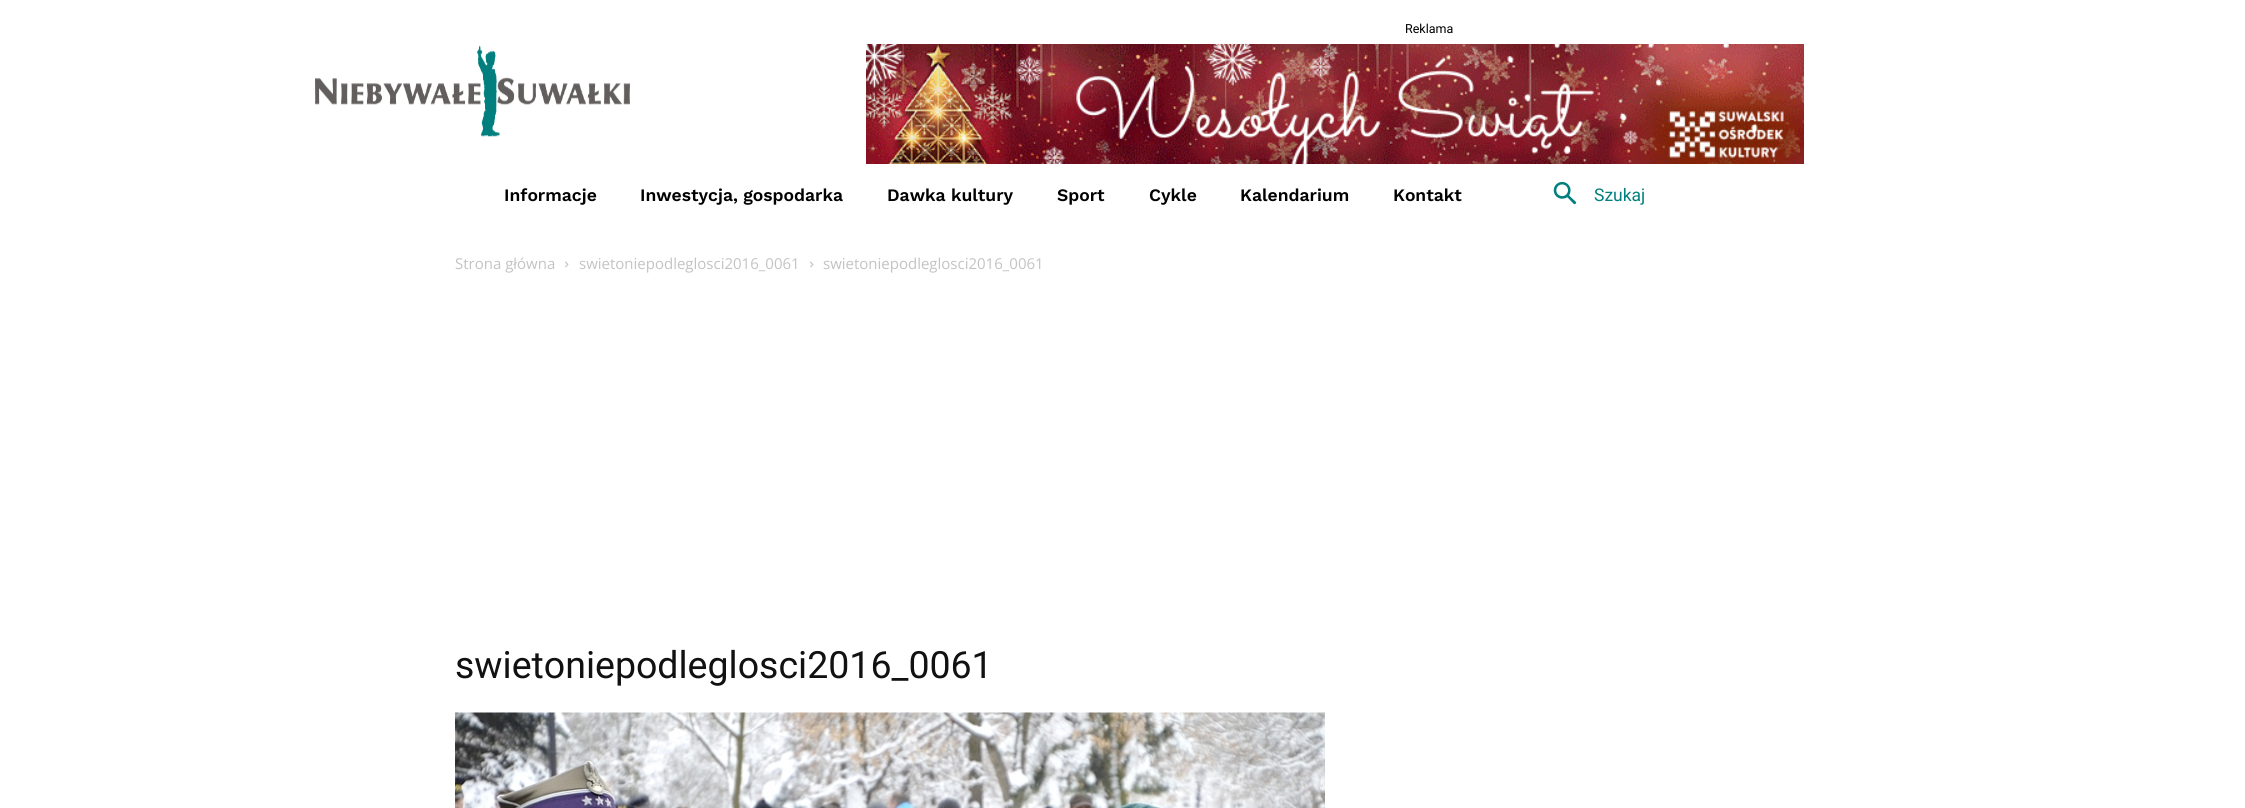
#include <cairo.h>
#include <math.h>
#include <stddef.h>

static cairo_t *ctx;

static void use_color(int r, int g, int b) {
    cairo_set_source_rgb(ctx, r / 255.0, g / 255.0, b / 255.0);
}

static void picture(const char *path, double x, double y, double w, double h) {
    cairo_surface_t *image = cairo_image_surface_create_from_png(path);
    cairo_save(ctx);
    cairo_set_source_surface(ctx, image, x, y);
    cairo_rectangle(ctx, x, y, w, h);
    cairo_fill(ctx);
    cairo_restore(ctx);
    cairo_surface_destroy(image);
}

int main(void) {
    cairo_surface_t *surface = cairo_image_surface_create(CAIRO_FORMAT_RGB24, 2245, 808);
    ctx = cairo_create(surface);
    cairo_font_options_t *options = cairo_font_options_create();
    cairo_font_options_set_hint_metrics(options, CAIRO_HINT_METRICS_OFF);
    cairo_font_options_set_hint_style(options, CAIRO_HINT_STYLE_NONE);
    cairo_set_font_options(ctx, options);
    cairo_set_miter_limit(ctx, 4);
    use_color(255, 255, 255);
    cairo_paint(ctx);
    cairo_select_font_face(ctx, "Roboto", CAIRO_FONT_SLANT_NORMAL, CAIRO_FONT_WEIGHT_NORMAL);
    cairo_set_font_size(ctx, 12.5);
    use_color(0, 0, 0);
    cairo_move_to(ctx, 1405, 33);
    cairo_show_text(ctx, "Reklama");
    picture("img1.png", 866, 44, 938, 120);
    picture("img2.png", 315, 46, 315, 91);
    cairo_select_font_face(ctx, "Work Sans SemiBold", CAIRO_FONT_SLANT_NORMAL, CAIRO_FONT_WEIGHT_NORMAL);
    cairo_set_font_size(ctx, 17.5);
    cairo_move_to(ctx, 504, 201);
    cairo_show_text(ctx, "Informacje");
    cairo_move_to(ctx, 640, 201);
    cairo_show_text(ctx, "Inwestycja, gospodarka");
    cairo_move_to(ctx, 887, 201);
    cairo_show_text(ctx, "Dawka kultury");
    cairo_move_to(ctx, 1057, 201);
    cairo_show_text(ctx, "Sport");
    cairo_move_to(ctx, 1149, 201);
    cairo_show_text(ctx, "Cykle");
    cairo_move_to(ctx, 1240, 201);
    cairo_show_text(ctx, "Kalendarium");
    cairo_move_to(ctx, 1393, 201);
    cairo_show_text(ctx, "Kontakt");
    picture("img3.png", 1553, 181, 23, 24);
    cairo_select_font_face(ctx, "Roboto", CAIRO_FONT_SLANT_NORMAL, CAIRO_FONT_WEIGHT_NORMAL);
    use_color(2, 126, 126);
    cairo_move_to(ctx, 1594, 201);
    cairo_show_text(ctx, "Szukaj");
    cairo_select_font_face(ctx, "Open Sans", CAIRO_FONT_SLANT_NORMAL, CAIRO_FONT_WEIGHT_NORMAL);
    cairo_set_font_size(ctx, 15);
    use_color(195, 195, 195);
    cairo_move_to(ctx, 455, 269);
    cairo_show_text(ctx, "Strona główna");
    picture("img4.png", 565, 261, 4, 7);
    cairo_move_to(ctx, 579, 269);
    cairo_show_text(ctx, "swietoniepodleglosci2016_0061");
    picture("img4.png", 810, 261, 4, 7);
    cairo_move_to(ctx, 823, 269);
    cairo_show_text(ctx, "swietoniepodleglosci2016_0061");
    cairo_select_font_face(ctx, "Roboto", CAIRO_FONT_SLANT_NORMAL, CAIRO_FONT_WEIGHT_NORMAL);
    cairo_set_font_size(ctx, 37.5);
    use_color(17, 17, 17);
    cairo_move_to(ctx, 455, 678);
    cairo_show_text(ctx, "swietoniepodleglosci2016_0061");
    picture("img5.png", 455, 712, 870, 96);
    cairo_surface_write_to_png(surface, "result.png");
    cairo_font_options_destroy(options);
    cairo_destroy(ctx);
    cairo_surface_destroy(surface);
    return 0;
}
